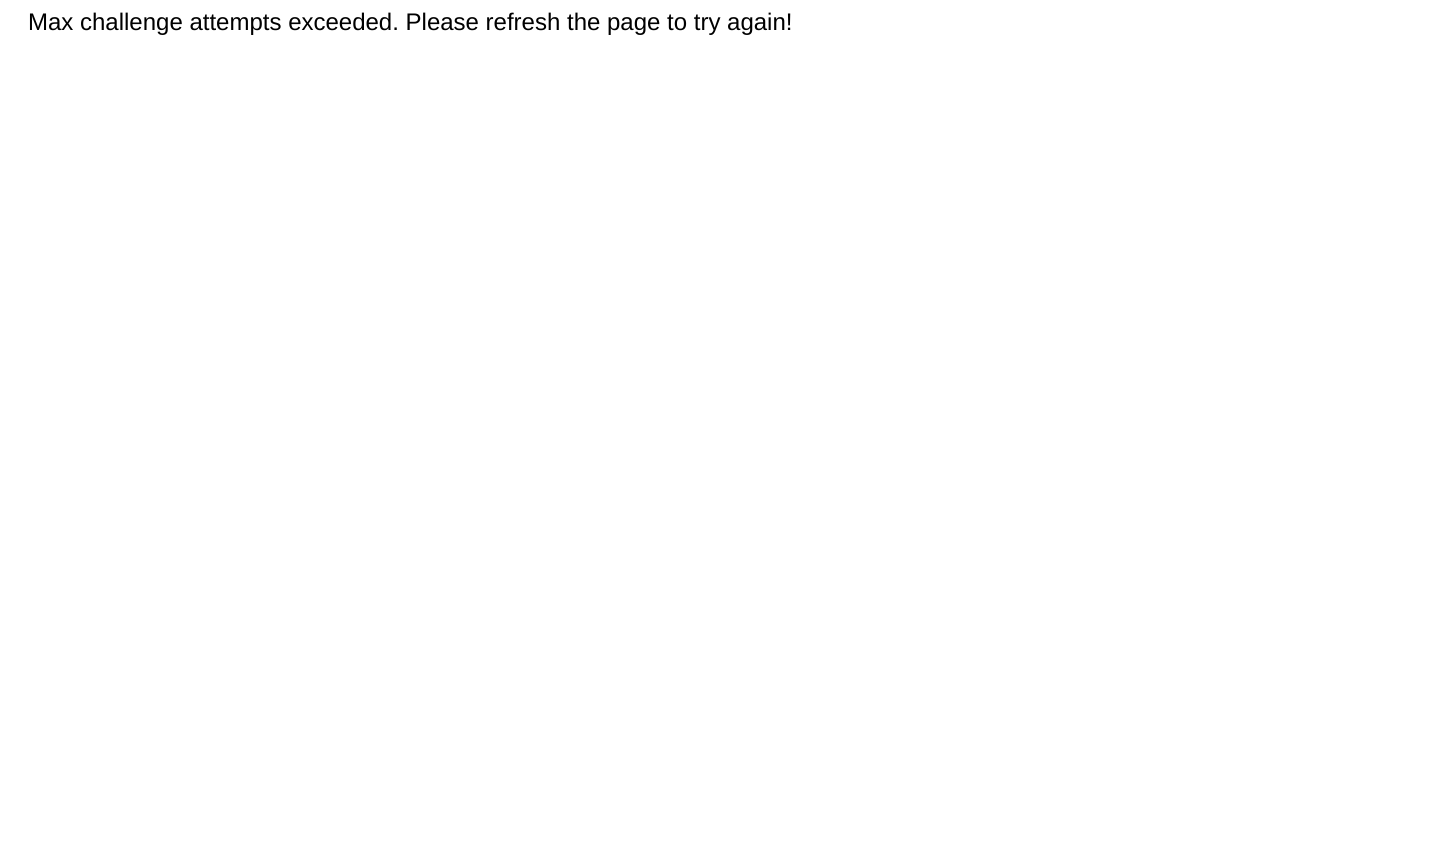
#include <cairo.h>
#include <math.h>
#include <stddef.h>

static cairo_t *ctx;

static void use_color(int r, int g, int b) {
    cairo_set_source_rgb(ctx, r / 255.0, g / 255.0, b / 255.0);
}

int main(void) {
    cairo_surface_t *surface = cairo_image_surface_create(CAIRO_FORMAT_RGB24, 1431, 848);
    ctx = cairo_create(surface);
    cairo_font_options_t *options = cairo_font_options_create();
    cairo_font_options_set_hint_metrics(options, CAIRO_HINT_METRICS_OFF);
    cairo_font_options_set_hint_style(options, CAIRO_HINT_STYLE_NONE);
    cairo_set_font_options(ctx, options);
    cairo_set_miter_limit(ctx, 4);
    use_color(255, 255, 255);
    cairo_paint(ctx);
    cairo_select_font_face(ctx, "Liberation Sans", CAIRO_FONT_SLANT_NORMAL, CAIRO_FONT_WEIGHT_NORMAL);
    cairo_set_font_size(ctx, 24);
    use_color(0, 0, 0);
    cairo_move_to(ctx, 28, 30);
    cairo_show_text(ctx, "Max challenge attempts exceeded. Please refresh the page to try again!");
    cairo_surface_write_to_png(surface, "result.png");
    cairo_font_options_destroy(options);
    cairo_destroy(ctx);
    cairo_surface_destroy(surface);
    return 0;
}
